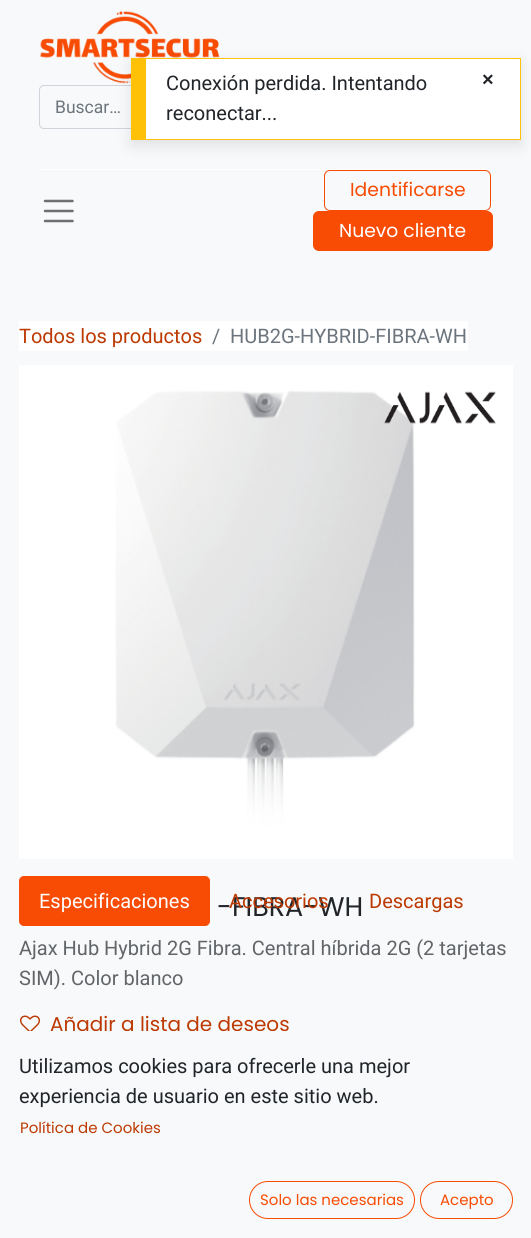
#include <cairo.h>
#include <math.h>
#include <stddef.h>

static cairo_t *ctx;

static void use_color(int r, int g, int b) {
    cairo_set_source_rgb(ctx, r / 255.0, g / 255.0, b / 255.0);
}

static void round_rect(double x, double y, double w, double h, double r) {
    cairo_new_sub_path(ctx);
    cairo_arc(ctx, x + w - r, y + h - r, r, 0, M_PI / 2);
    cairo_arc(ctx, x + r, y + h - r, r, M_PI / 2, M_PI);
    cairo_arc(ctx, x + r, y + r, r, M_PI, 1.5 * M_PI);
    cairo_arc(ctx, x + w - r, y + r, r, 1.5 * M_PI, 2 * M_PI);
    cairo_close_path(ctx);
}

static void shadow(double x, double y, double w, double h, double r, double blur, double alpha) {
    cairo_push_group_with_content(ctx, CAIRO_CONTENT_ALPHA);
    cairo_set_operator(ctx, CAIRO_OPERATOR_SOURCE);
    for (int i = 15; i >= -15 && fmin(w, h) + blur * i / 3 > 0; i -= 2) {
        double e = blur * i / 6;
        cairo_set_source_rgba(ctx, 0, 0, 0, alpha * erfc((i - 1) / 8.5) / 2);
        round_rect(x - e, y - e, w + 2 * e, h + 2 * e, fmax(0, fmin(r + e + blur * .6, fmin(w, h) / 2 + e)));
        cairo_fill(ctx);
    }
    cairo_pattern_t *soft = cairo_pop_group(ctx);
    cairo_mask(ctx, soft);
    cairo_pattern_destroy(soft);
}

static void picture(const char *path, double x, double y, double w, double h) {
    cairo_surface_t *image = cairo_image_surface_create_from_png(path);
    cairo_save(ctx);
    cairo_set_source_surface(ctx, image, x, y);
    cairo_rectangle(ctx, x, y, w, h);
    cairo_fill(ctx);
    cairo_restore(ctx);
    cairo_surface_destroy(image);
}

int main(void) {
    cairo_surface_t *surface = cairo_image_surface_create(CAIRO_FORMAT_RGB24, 531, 1238);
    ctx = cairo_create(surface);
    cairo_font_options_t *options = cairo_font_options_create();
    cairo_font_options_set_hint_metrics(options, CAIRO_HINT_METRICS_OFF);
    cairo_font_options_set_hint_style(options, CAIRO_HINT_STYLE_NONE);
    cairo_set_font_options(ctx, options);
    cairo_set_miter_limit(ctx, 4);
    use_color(248, 249, 250);
    cairo_paint(ctx);
    picture("img1.png", 40, 11, 180, 73);
    cairo_new_path(ctx);
    cairo_move_to(ctx, 44, 85.5);
    cairo_line_to(ctx, 422.5, 85.5);
    cairo_line_to(ctx, 422.5, 128.5);
    cairo_line_to(ctx, 44, 128.5);
    cairo_curve_to(ctx, 41.5, 128.5, 39.5, 126.5, 39.5, 124);
    cairo_line_to(ctx, 39.5, 90);
    cairo_curve_to(ctx, 39.5, 87.5, 41.5, 85.5, 44, 85.5);
    cairo_close_path(ctx);
    use_color(206, 212, 218);
    cairo_set_line_width(ctx, 1);
    cairo_stroke(ctx);
    use_color(0, 0, 0);
    shadow(131, 63, 390, 82, 0, 7.5, 0.1);
    use_color(255, 255, 255);
    cairo_rectangle(ctx, 146, 59, 374, 80);
    cairo_fill(ctx);
    use_color(255, 193, 7);
    cairo_rectangle(ctx, 146, 58, 375, 1);
    cairo_fill(ctx);
    cairo_rectangle(ctx, 520, 58, 1, 82);
    cairo_fill(ctx);
    cairo_rectangle(ctx, 146, 139, 375, 1);
    cairo_fill(ctx);
    cairo_rectangle(ctx, 131, 58, 15, 82);
    cairo_fill(ctx);
    cairo_select_font_face(ctx, "Roboto", CAIRO_FONT_SLANT_NORMAL, CAIRO_FONT_WEIGHT_NORMAL);
    cairo_set_font_size(ctx, 20);
    use_color(33, 37, 41);
    cairo_move_to(ctx, 166, 90);
    cairo_show_text(ctx, "Conexión perdida. Intentando");
    cairo_move_to(ctx, 166, 120);
    cairo_show_text(ctx, "reconectar...");
    cairo_select_font_face(ctx, "Liberation Sans", CAIRO_FONT_SLANT_NORMAL, CAIRO_FONT_WEIGHT_BOLD);
    cairo_move_to(ctx, 482, 86);
    cairo_show_text(ctx, "×");
    cairo_select_font_face(ctx, "Roboto", CAIRO_FONT_SLANT_NORMAL, CAIRO_FONT_WEIGHT_NORMAL);
    cairo_set_font_size(ctx, 17.5);
    use_color(108, 117, 125);
    cairo_move_to(ctx, 55, 113);
    cairo_show_text(ctx, "Buscar…");
    use_color(255, 255, 255);
    cairo_rectangle(ctx, 39, 169, 454, 1);
    cairo_fill(ctx);
    cairo_new_path(ctx);
    cairo_move_to(ctx, 45, 201);
    cairo_line_to(ctx, 72.5, 201);
    cairo_move_to(ctx, 45, 211);
    cairo_line_to(ctx, 72.5, 211);
    cairo_move_to(ctx, 45, 221);
    cairo_line_to(ctx, 72.5, 221);
    use_color(112, 112, 113);
    cairo_set_line_width(ctx, 2.5);
    cairo_set_line_cap(ctx, CAIRO_LINE_CAP_ROUND);
    cairo_stroke(ctx);
    round_rect(324.5, 170.5, 166, 40, 5.5);
    use_color(248, 75, 3);
    cairo_set_line_width(ctx, 1);
    cairo_set_line_cap(ctx, CAIRO_LINE_CAP_BUTT);
    cairo_stroke(ctx);
    cairo_select_font_face(ctx, "Poppins", CAIRO_FONT_SLANT_NORMAL, CAIRO_FONT_WEIGHT_NORMAL);
    cairo_set_font_size(ctx, 18.75);
    cairo_move_to(ctx, 350, 196);
    cairo_show_text(ctx, "Identificarse");
    round_rect(313.5, 211.5, 179, 39, 5.5);
    cairo_fill_preserve(ctx);
    cairo_stroke(ctx);
    use_color(255, 255, 255);
    cairo_move_to(ctx, 339, 237);
    cairo_show_text(ctx, "Nuevo cliente");
    cairo_rectangle(ctx, 19, 321, 449, 30);
    cairo_fill(ctx);
    cairo_select_font_face(ctx, "Roboto", CAIRO_FONT_SLANT_NORMAL, CAIRO_FONT_WEIGHT_NORMAL);
    cairo_set_font_size(ctx, 20);
    use_color(188, 57, 2);
    cairo_move_to(ctx, 19, 343);
    cairo_show_text(ctx, "Todos los productos");
    use_color(108, 117, 125);
    cairo_move_to(ctx, 212, 343);
    cairo_show_text(ctx, "/");
    cairo_move_to(ctx, 230, 343);
    cairo_show_text(ctx, "HUB2G-HYBRID-FIBRA-WH");
    picture("img2.png", 19, 365, 494, 494);
    picture("img3.png", 384, 391, 112, 33);
    cairo_select_font_face(ctx, "Poppins", CAIRO_FONT_SLANT_NORMAL, CAIRO_FONT_WEIGHT_NORMAL);
    cairo_set_font_size(ctx, 27);
    use_color(33, 37, 41);
    cairo_move_to(ctx, 217, 916);
    cairo_show_text(ctx, "-FIBRA-WH");
    cairo_select_font_face(ctx, "Roboto", CAIRO_FONT_SLANT_NORMAL, CAIRO_FONT_WEIGHT_NORMAL);
    cairo_set_font_size(ctx, 20);
    use_color(98, 101, 104);
    cairo_move_to(ctx, 19, 955);
    cairo_show_text(ctx, "Ajax Hub Hybrid 2G Fibra. Central híbrida 2G (2 tarjetas");
    cairo_move_to(ctx, 19, 985);
    cairo_show_text(ctx, "SIM). Color blanco");
    picture("img4.png", 20, 1015, 20, 16);
    cairo_select_font_face(ctx, "Poppins", CAIRO_FONT_SLANT_NORMAL, CAIRO_FONT_WEIGHT_NORMAL);
    use_color(188, 57, 2);
    cairo_move_to(ctx, 50, 1031);
    cairo_show_text(ctx, "Añadir a lista de deseos");
    use_color(248, 75, 3);
    round_rect(19, 876, 191, 50, 5);
    cairo_fill(ctx);
    cairo_select_font_face(ctx, "Roboto", CAIRO_FONT_SLANT_NORMAL, CAIRO_FONT_WEIGHT_NORMAL);
    use_color(255, 255, 255);
    cairo_move_to(ctx, 39, 908);
    cairo_show_text(ctx, "Especificaciones");
    use_color(188, 57, 2);
    cairo_move_to(ctx, 229, 908);
    cairo_show_text(ctx, "Accesorios");
    cairo_move_to(ctx, 369, 908);
    cairo_show_text(ctx, "Descargas");
    use_color(248, 249, 250);
    cairo_rectangle(ctx, 81, 1031, 205, 1);
    cairo_fill(ctx);
    use_color(33, 37, 41);
    cairo_move_to(ctx, 19, 1073);
    cairo_show_text(ctx, "Utilizamos cookies para ofrecerle una mejor");
    cairo_move_to(ctx, 19, 1103);
    cairo_show_text(ctx, "experiencia de usuario en este sitio web.");
    cairo_select_font_face(ctx, "Poppins", CAIRO_FONT_SLANT_NORMAL, CAIRO_FONT_WEIGHT_NORMAL);
    cairo_set_font_size(ctx, 15);
    use_color(188, 57, 2);
    cairo_move_to(ctx, 20, 1133);
    cairo_show_text(ctx, "Política de Cookies");
    round_rect(249.5, 1181.5, 165, 37, 18.5);
    use_color(248, 75, 3);
    cairo_stroke(ctx);
    cairo_move_to(ctx, 260, 1205);
    cairo_show_text(ctx, "Solo las necesarias");
    round_rect(420.5, 1181.5, 92, 37, 18.5);
    cairo_stroke(ctx);
    cairo_move_to(ctx, 440, 1205);
    cairo_show_text(ctx, "Acepto");
    cairo_surface_write_to_png(surface, "result.png");
    cairo_font_options_destroy(options);
    cairo_destroy(ctx);
    cairo_surface_destroy(surface);
    return 0;
}
